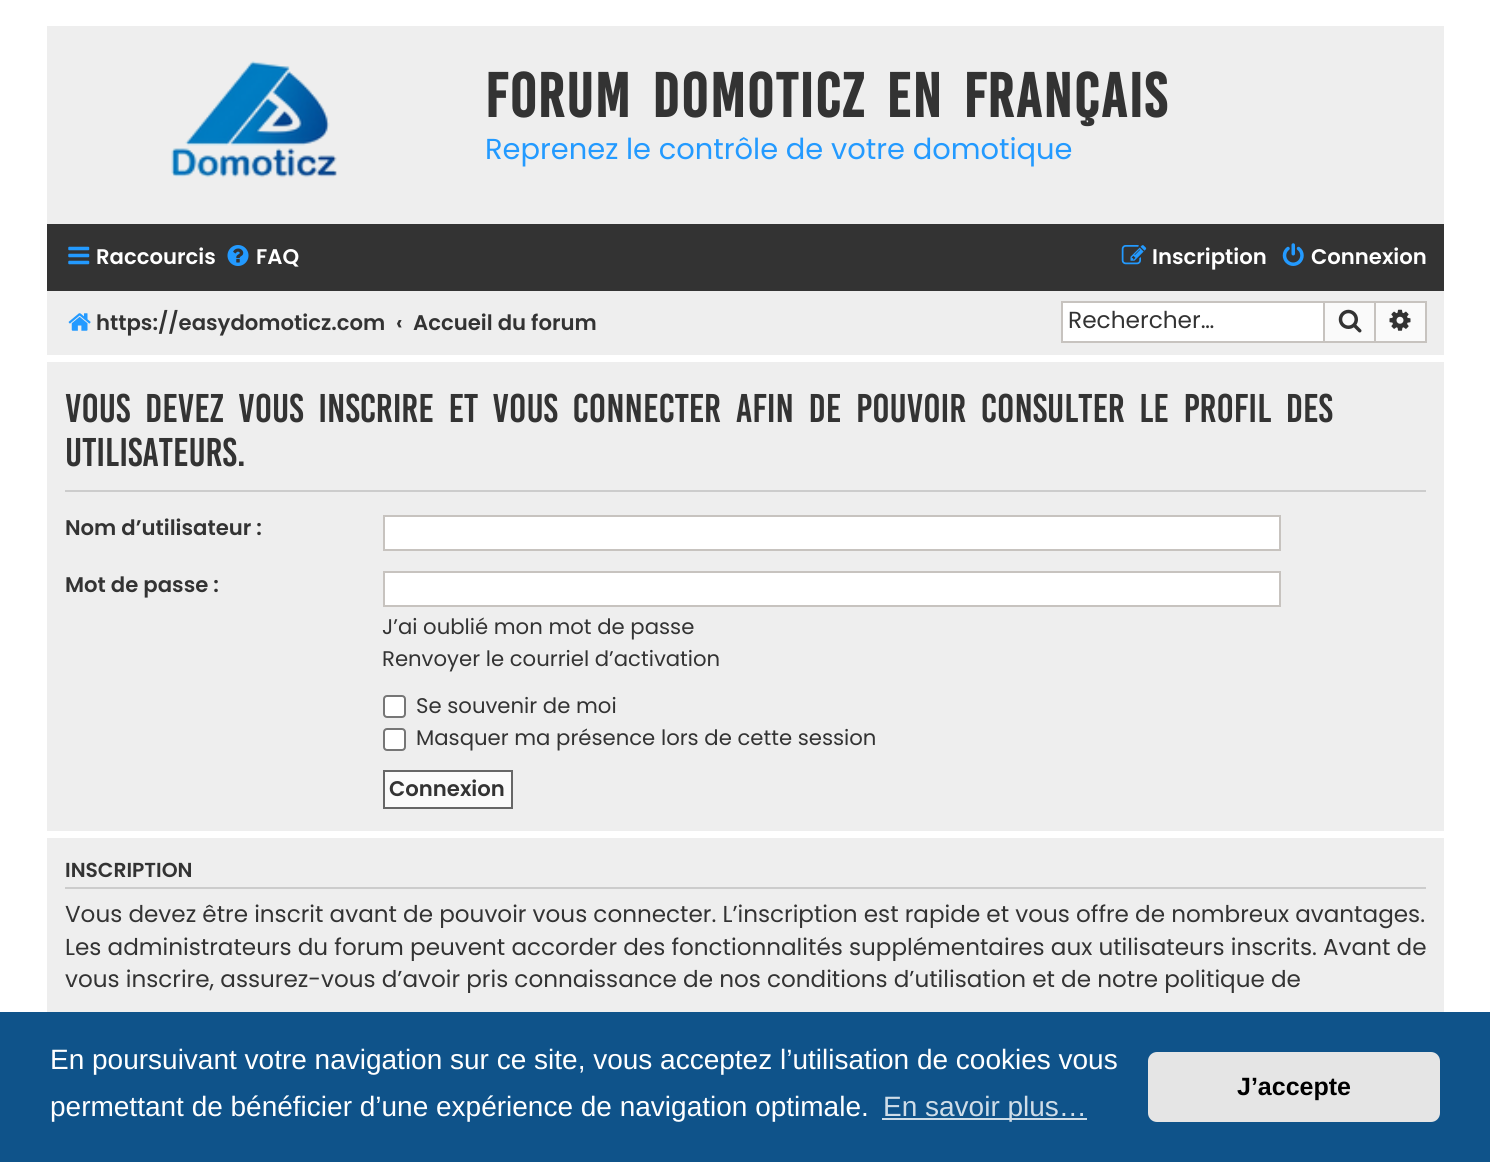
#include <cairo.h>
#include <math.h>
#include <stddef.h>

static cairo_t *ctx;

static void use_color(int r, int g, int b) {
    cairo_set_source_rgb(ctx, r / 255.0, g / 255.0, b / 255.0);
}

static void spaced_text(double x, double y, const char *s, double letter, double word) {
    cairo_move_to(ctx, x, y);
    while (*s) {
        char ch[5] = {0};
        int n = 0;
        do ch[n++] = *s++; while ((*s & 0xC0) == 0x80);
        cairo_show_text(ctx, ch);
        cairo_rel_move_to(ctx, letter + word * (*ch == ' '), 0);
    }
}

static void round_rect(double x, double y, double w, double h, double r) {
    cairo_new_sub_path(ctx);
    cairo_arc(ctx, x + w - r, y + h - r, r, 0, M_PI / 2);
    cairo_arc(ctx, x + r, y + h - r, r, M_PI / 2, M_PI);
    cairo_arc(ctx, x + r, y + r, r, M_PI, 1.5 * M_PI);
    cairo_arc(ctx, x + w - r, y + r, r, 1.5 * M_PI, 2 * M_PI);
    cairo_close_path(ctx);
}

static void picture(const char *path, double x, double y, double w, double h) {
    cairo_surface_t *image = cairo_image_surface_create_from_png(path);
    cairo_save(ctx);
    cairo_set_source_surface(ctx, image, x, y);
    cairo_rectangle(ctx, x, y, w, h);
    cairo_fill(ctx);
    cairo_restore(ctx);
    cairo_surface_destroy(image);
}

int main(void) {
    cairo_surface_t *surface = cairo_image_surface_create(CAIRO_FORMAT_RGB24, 1490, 1162);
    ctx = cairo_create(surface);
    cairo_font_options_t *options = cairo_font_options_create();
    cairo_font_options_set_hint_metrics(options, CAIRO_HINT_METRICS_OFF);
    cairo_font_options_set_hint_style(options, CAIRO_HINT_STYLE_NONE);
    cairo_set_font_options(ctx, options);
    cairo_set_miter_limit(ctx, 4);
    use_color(255, 255, 255);
    cairo_paint(ctx);
    use_color(238, 238, 238);
    cairo_rectangle(ctx, 47, 26, 1397, 198);
    cairo_fill(ctx);
    picture("img1.png", 171, 61, 166, 117);
    cairo_select_font_face(ctx, "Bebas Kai", CAIRO_FONT_SLANT_NORMAL, CAIRO_FONT_WEIGHT_BOLD);
    cairo_set_font_size(ctx, 48.1);
    use_color(51, 51, 51);
    spaced_text(485, 117, "Forum Domoticz en français", 1.75, 7);
    cairo_select_font_face(ctx, "Poppins", CAIRO_FONT_SLANT_NORMAL, CAIRO_FONT_WEIGHT_NORMAL);
    cairo_set_font_size(ctx, 28.9);
    use_color(35, 154, 255);
    cairo_move_to(ctx, 485, 159);
    cairo_show_text(ctx, "Reprenez le contrôle de votre domotique");
    use_color(51, 51, 51);
    cairo_rectangle(ctx, 47, 224, 1397, 67);
    cairo_fill(ctx);
    picture("img2.png", 68, 246, 22, 19);
    cairo_select_font_face(ctx, "Poppins SemiBold", CAIRO_FONT_SLANT_NORMAL, CAIRO_FONT_WEIGHT_NORMAL);
    cairo_set_font_size(ctx, 21.2);
    use_color(255, 255, 255);
    cairo_move_to(ctx, 96, 264);
    cairo_show_text(ctx, "Raccourcis");
    picture("img3.png", 227, 245, 22, 21);
    cairo_move_to(ctx, 256, 264);
    cairo_show_text(ctx, "FAQ");
    picture("img4.png", 1121, 245, 26, 20);
    cairo_move_to(ctx, 1152, 264);
    cairo_show_text(ctx, "Inscription");
    picture("img5.png", 1282, 243, 22, 23);
    cairo_move_to(ctx, 1311, 264);
    cairo_show_text(ctx, "Connexion");
    use_color(238, 238, 238);
    cairo_rectangle(ctx, 47, 291, 1397, 64);
    cairo_fill(ctx);
    picture("img6.png", 68, 313, 23, 18);
    use_color(51, 51, 51);
    cairo_move_to(ctx, 96, 330);
    cairo_show_text(ctx, "https://easydomoticz.com");
    cairo_move_to(ctx, 396, 330);
    cairo_show_text(ctx, "‹");
    cairo_move_to(ctx, 413, 330);
    cairo_show_text(ctx, "Accueil du forum");
    use_color(255, 255, 255);
    cairo_rectangle(ctx, 1063, 303, 260, 38);
    cairo_fill(ctx);
    use_color(199, 195, 191);
    cairo_rectangle(ctx, 1061, 301, 262, 2);
    cairo_fill(ctx);
    cairo_rectangle(ctx, 1061, 341, 262, 2);
    cairo_fill(ctx);
    cairo_rectangle(ctx, 1061, 301, 2, 42);
    cairo_fill(ctx);
    cairo_select_font_face(ctx, "Poppins", CAIRO_FONT_SLANT_NORMAL, CAIRO_FONT_WEIGHT_NORMAL);
    cairo_set_font_size(ctx, 23.25);
    use_color(51, 51, 51);
    cairo_move_to(ctx, 1068, 328);
    cairo_show_text(ctx, "Rechercher…");
    use_color(250, 250, 250);
    cairo_rectangle(ctx, 1324, 302, 51, 40);
    cairo_fill_preserve(ctx);
    use_color(199, 195, 191);
    cairo_stroke(ctx);
    picture("img7.png", 1338, 309, 24, 24);
    use_color(250, 250, 250);
    cairo_rectangle(ctx, 1376, 303, 49, 38);
    cairo_fill(ctx);
    use_color(199, 195, 191);
    cairo_rectangle(ctx, 1376, 301, 50, 2);
    cairo_fill(ctx);
    cairo_rectangle(ctx, 1425, 301, 2, 42);
    cairo_fill(ctx);
    cairo_rectangle(ctx, 1376, 341, 50, 2);
    cairo_fill(ctx);
    picture("img8.png", 1389, 309, 22, 22);
    use_color(238, 238, 238);
    cairo_rectangle(ctx, 47, 362, 1397, 469);
    cairo_fill(ctx);
    use_color(204, 204, 204);
    cairo_rectangle(ctx, 65, 490, 1361, 2);
    cairo_fill(ctx);
    cairo_select_font_face(ctx, "Bebas Kai", CAIRO_FONT_SLANT_NORMAL, CAIRO_FONT_WEIGHT_NORMAL);
    cairo_set_font_size(ctx, 30.8);
    use_color(51, 51, 51);
    spaced_text(65, 422, "Vous devez vous inscrire et vous connecter afin de pouvoir consulter le profil des", 0, 7);
    cairo_move_to(ctx, 65, 466);
    cairo_show_text(ctx, "utilisateurs.");
    cairo_select_font_face(ctx, "Poppins SemiBold", CAIRO_FONT_SLANT_NORMAL, CAIRO_FONT_WEIGHT_NORMAL);
    cairo_set_font_size(ctx, 21.2);
    cairo_move_to(ctx, 65, 535);
    cairo_show_text(ctx, "Nom d’utilisateur :");
    use_color(255, 255, 255);
    cairo_rectangle(ctx, 384, 516, 896, 34);
    cairo_fill_preserve(ctx);
    use_color(199, 195, 191);
    cairo_stroke(ctx);
    use_color(51, 51, 51);
    cairo_move_to(ctx, 65, 592);
    cairo_show_text(ctx, "Mot de passe :");
    use_color(255, 255, 255);
    cairo_rectangle(ctx, 384, 572, 896, 34);
    cairo_fill_preserve(ctx);
    use_color(199, 195, 191);
    cairo_stroke(ctx);
    cairo_select_font_face(ctx, "Poppins", CAIRO_FONT_SLANT_NORMAL, CAIRO_FONT_WEIGHT_NORMAL);
    use_color(51, 51, 51);
    cairo_move_to(ctx, 382, 634);
    cairo_show_text(ctx, "J’ai oublié mon mot de passe");
    cairo_move_to(ctx, 382, 666);
    cairo_show_text(ctx, "Renvoyer le courriel d’activation");
    use_color(255, 255, 255);
    round_rect(384, 696, 21, 21, 3);
    cairo_fill_preserve(ctx);
    use_color(118, 118, 118);
    cairo_stroke(ctx);
    use_color(51, 51, 51);
    cairo_move_to(ctx, 416, 713);
    cairo_show_text(ctx, "Se souvenir de moi");
    use_color(255, 255, 255);
    round_rect(384, 729, 21, 21, 3);
    cairo_fill_preserve(ctx);
    use_color(118, 118, 118);
    cairo_stroke(ctx);
    use_color(51, 51, 51);
    cairo_move_to(ctx, 416, 745);
    cairo_show_text(ctx, "Masquer ma présence lors de cette session");
    use_color(250, 250, 250);
    cairo_rectangle(ctx, 384, 771, 128, 37);
    cairo_fill_preserve(ctx);
    use_color(102, 102, 102);
    cairo_stroke(ctx);
    cairo_select_font_face(ctx, "Poppins SemiBold", CAIRO_FONT_SLANT_NORMAL, CAIRO_FONT_WEIGHT_NORMAL);
    use_color(51, 51, 51);
    cairo_move_to(ctx, 389, 796);
    cairo_show_text(ctx, "Connexion");
    use_color(238, 238, 238);
    cairo_rectangle(ctx, 47, 838, 1397, 174);
    cairo_fill(ctx);
    use_color(204, 204, 204);
    cairo_rectangle(ctx, 65, 887, 1361, 2);
    cairo_fill(ctx);
    cairo_set_font_size(ctx, 20.25);
    use_color(51, 51, 51);
    cairo_move_to(ctx, 65, 877);
    cairo_show_text(ctx, "INSCRIPTION");
    cairo_select_font_face(ctx, "Poppins", CAIRO_FONT_SLANT_NORMAL, CAIRO_FONT_WEIGHT_NORMAL);
    cairo_set_font_size(ctx, 23.1);
    cairo_move_to(ctx, 65, 922);
    cairo_show_text(ctx, "Vous devez être inscrit avant de pouvoir vous connecter. L’inscription est rapide et vous offre de nombreux avantages.");
    cairo_move_to(ctx, 65, 955);
    cairo_show_text(ctx, "Les administrateurs du forum peuvent accorder des fonctionnalités supplémentaires aux utilisateurs inscrits. Avant de");
    cairo_move_to(ctx, 65, 987);
    cairo_show_text(ctx, "vous inscrire, assurez-vous d’avoir pris connaissance de nos conditions d’utilisation et de notre politique de");
    use_color(15, 83, 138);
    cairo_rectangle(ctx, 0, 1012, 1490, 150);
    cairo_fill(ctx);
    cairo_select_font_face(ctx, "Liberation Sans", CAIRO_FONT_SLANT_NORMAL, CAIRO_FONT_WEIGHT_NORMAL);
    cairo_set_font_size(ctx, 28);
    use_color(255, 255, 255);
    cairo_move_to(ctx, 50, 1069);
    cairo_show_text(ctx, "En poursuivant votre navigation sur ce site, vous acceptez l’utilisation de cookies vous");
    cairo_move_to(ctx, 50, 1116);
    cairo_show_text(ctx, "permettant de bénéficier d’une expérience de navigation optimale.");
    use_color(207, 221, 232);
    cairo_rectangle(ctx, 882, 1118, 205, 2);
    cairo_fill(ctx);
    cairo_move_to(ctx, 883, 1116);
    cairo_show_text(ctx, "En savoir plus…");
    use_color(229, 229, 229);
    round_rect(1148, 1052, 292, 70, 9);
    cairo_fill(ctx);
    cairo_select_font_face(ctx, "Liberation Sans", CAIRO_FONT_SLANT_NORMAL, CAIRO_FONT_WEIGHT_BOLD);
    cairo_set_font_size(ctx, 25);
    use_color(0, 0, 0);
    cairo_move_to(ctx, 1237, 1095);
    cairo_show_text(ctx, "J’accepte");
    cairo_surface_write_to_png(surface, "result.png");
    cairo_font_options_destroy(options);
    cairo_destroy(ctx);
    cairo_surface_destroy(surface);
    return 0;
}
